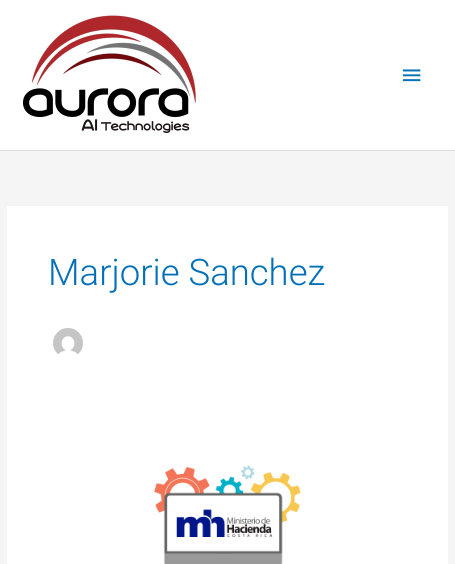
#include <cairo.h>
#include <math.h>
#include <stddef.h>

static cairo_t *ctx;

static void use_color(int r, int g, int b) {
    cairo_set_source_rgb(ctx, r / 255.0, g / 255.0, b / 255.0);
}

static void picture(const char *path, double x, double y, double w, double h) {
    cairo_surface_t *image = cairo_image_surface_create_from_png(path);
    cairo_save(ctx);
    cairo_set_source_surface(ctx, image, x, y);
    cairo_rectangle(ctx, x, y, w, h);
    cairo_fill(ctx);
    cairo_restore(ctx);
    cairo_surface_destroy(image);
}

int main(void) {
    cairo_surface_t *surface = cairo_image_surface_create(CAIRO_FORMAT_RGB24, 455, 564);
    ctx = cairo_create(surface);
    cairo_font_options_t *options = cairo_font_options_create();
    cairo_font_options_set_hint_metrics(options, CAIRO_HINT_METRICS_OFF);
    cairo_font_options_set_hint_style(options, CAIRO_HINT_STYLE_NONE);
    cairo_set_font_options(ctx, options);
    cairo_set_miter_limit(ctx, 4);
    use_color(245, 245, 245);
    cairo_paint(ctx);
    use_color(255, 255, 255);
    cairo_rectangle(ctx, 0, 0, 455, 150);
    cairo_fill(ctx);
    use_color(221, 221, 221);
    cairo_rectangle(ctx, 0, 150, 455, 1);
    cairo_fill(ctx);
    picture("img1.png", 23, 15, 173, 118);
    picture("img2.png", 402, 69, 19, 13);
    use_color(255, 255, 255);
    cairo_rectangle(ctx, 7, 206, 441, 358);
    cairo_fill(ctx);
    cairo_select_font_face(ctx, "Roboto Light", CAIRO_FONT_SLANT_NORMAL, CAIRO_FONT_WEIGHT_NORMAL);
    cairo_set_font_size(ctx, 36.5);
    use_color(1, 112, 185);
    cairo_move_to(ctx, 48, 285);
    cairo_show_text(ctx, "Marjorie Sanchez");
    picture("img3.png", 53, 328, 30, 27);
    picture("img4.png", 154, 465, 147, 99);
    cairo_surface_write_to_png(surface, "result.png");
    cairo_font_options_destroy(options);
    cairo_destroy(ctx);
    cairo_surface_destroy(surface);
    return 0;
}
